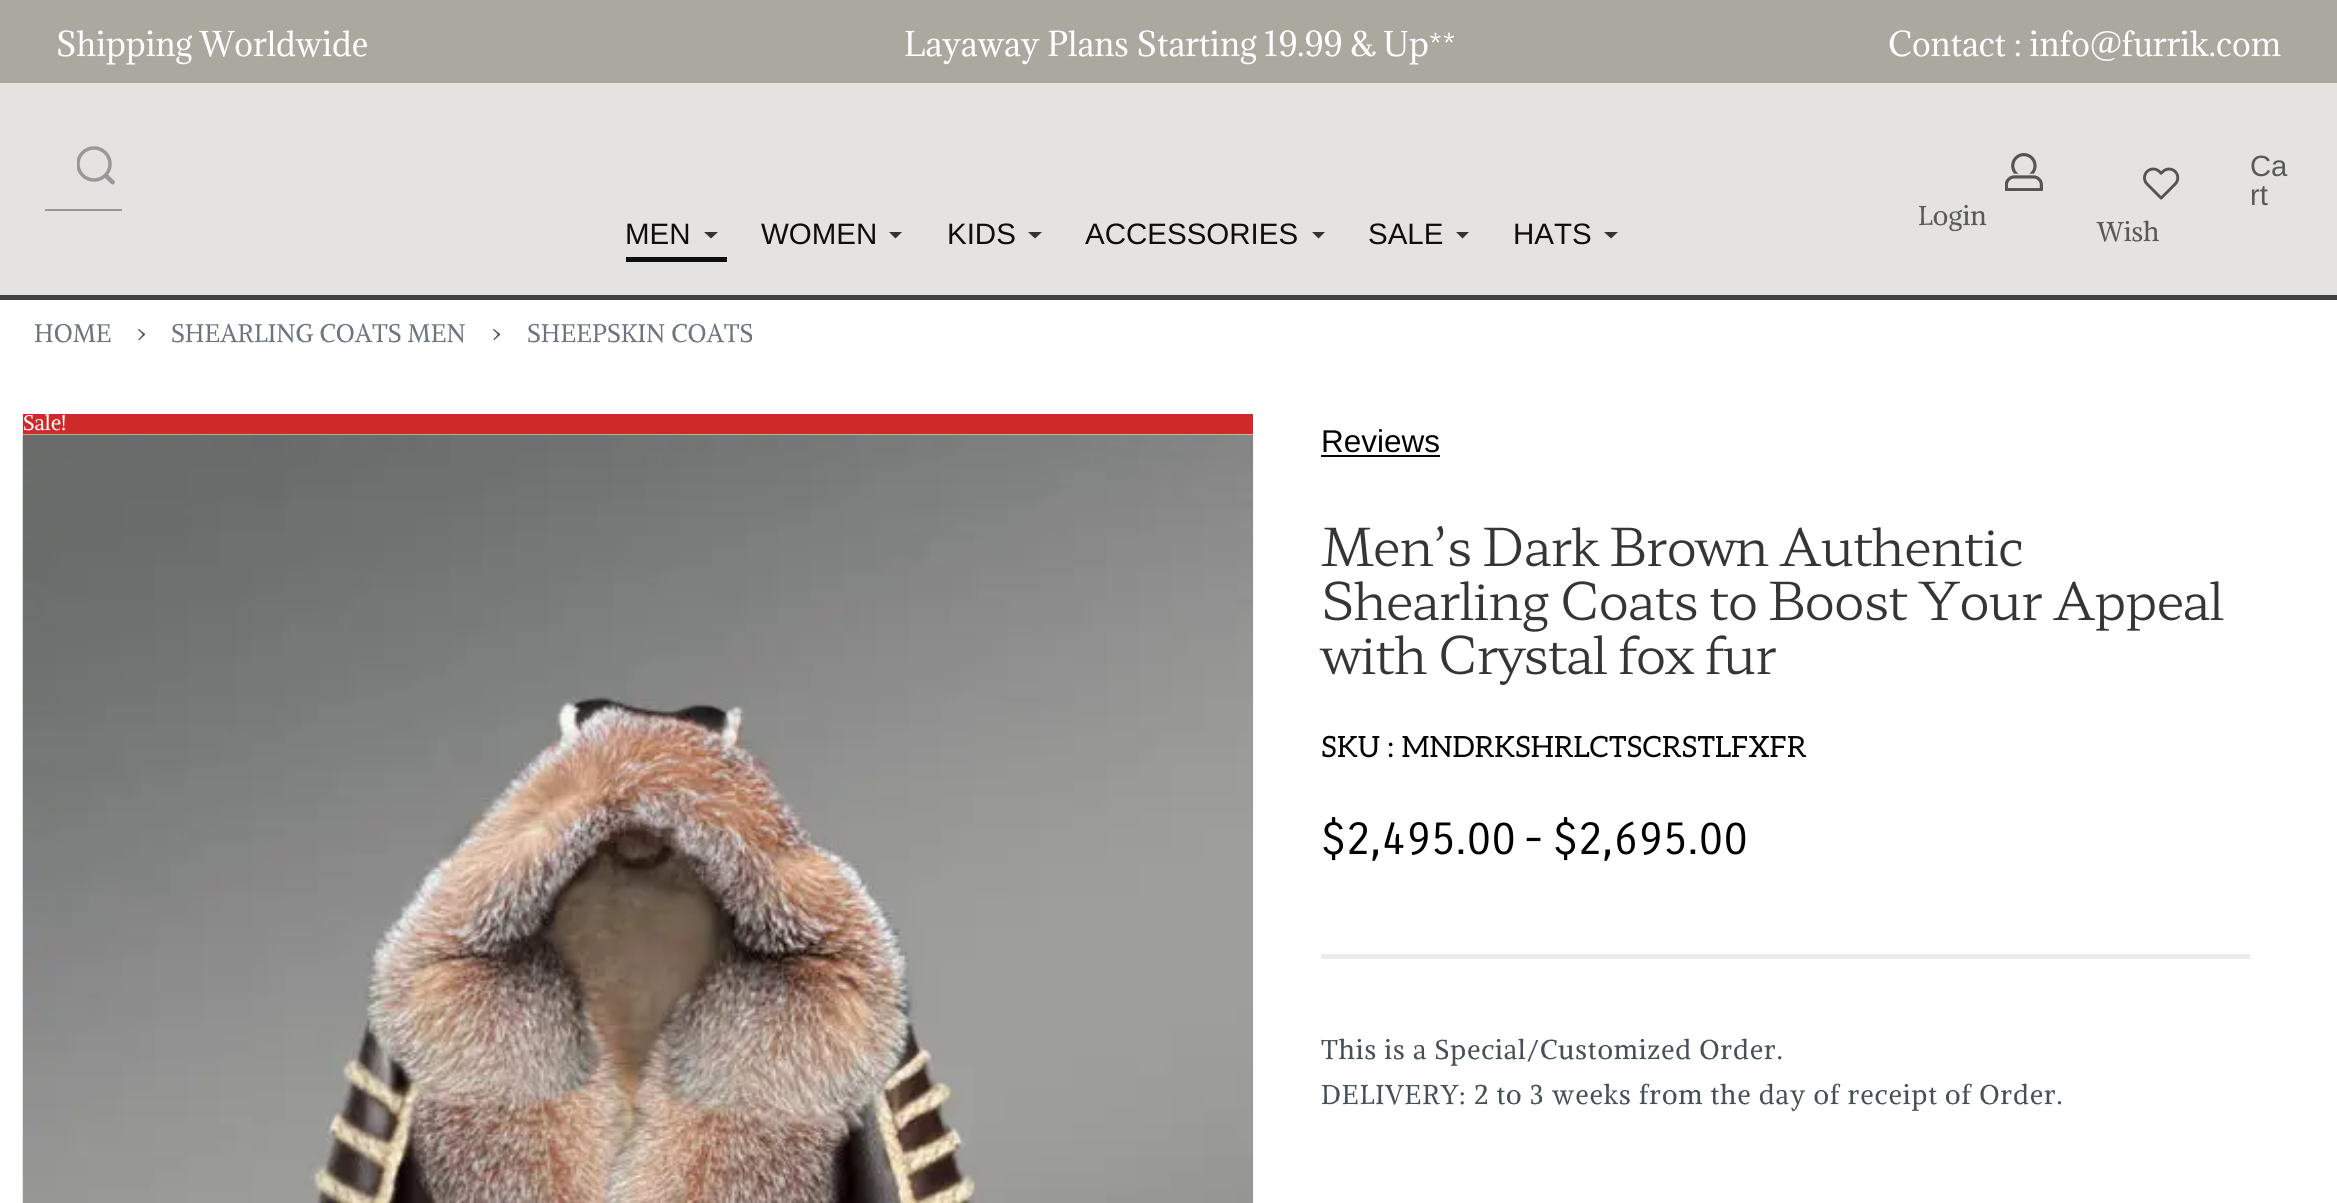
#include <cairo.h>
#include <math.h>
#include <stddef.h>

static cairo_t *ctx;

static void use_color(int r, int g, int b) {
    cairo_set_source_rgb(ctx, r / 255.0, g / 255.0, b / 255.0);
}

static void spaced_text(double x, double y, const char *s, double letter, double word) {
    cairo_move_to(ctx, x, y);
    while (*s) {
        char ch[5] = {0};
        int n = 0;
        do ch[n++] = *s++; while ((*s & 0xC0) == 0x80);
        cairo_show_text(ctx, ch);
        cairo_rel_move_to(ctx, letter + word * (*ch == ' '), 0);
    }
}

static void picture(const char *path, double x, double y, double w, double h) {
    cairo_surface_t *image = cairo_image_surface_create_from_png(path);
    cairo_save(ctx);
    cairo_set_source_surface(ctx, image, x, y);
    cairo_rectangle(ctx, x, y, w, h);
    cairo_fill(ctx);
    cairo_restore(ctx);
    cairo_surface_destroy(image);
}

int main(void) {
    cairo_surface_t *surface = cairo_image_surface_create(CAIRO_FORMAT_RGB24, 2337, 1203);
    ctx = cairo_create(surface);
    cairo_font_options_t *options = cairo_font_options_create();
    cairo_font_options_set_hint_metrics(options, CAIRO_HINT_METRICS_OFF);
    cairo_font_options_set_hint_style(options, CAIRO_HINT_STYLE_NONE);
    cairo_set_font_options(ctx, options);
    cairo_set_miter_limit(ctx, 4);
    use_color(255, 255, 255);
    cairo_paint(ctx);
    use_color(171, 168, 160);
    cairo_rectangle(ctx, 0, 0, 2337, 83);
    cairo_fill(ctx);
    cairo_select_font_face(ctx, "Adamina", CAIRO_FONT_SLANT_NORMAL, CAIRO_FONT_WEIGHT_NORMAL);
    cairo_set_font_size(ctx, 31.5);
    use_color(255, 255, 255);
    cairo_move_to(ctx, 56, 56);
    cairo_show_text(ctx, "Shipping Worldwide");
    cairo_move_to(ctx, 904, 56);
    cairo_show_text(ctx, "Layaway Plans Starting 19.99 & Up**");
    cairo_move_to(ctx, 1888, 56);
    cairo_show_text(ctx, "Contact : info@furrik.com");
    use_color(229, 227, 226);
    cairo_rectangle(ctx, 0, 83, 2337, 212);
    cairo_fill(ctx);
    use_color(64, 64, 64);
    cairo_rectangle(ctx, 0, 295, 2337, 5);
    cairo_fill(ctx);
    use_color(153, 152, 152);
    cairo_rectangle(ctx, 45, 209, 77, 2);
    cairo_fill(ctx);
    cairo_save(ctx);
    cairo_rectangle(ctx, 77, 146, 38, 39);
    cairo_clip(ctx);
    cairo_arc(ctx, 94, 164, 16, 0, 2 * M_PI);
    cairo_set_line_width(ctx, 3.5);
    cairo_stroke(ctx);
    cairo_restore(ctx);
    cairo_new_path(ctx);
    cairo_move_to(ctx, 108.5, 175);
    cairo_line_to(ctx, 114.5, 181);
    cairo_curve_to(ctx, 115, 181.5, 115, 182.5, 114.5, 183.5);
    cairo_curve_to(ctx, 112.5, 186, 110, 183, 109, 182);
    cairo_line_to(ctx, 105, 178);
    cairo_curve_to(ctx, 103, 176, 106, 172.5, 108.5, 175);
    cairo_close_path(ctx);
    cairo_fill(ctx);
    cairo_select_font_face(ctx, "Liberation Sans", CAIRO_FONT_SLANT_NORMAL, CAIRO_FONT_WEIGHT_NORMAL);
    cairo_set_font_size(ctx, 29.5);
    use_color(15, 14, 14);
    cairo_move_to(ctx, 625, 244);
    cairo_show_text(ctx, "MEN");
    use_color(51, 51, 51);
    cairo_new_path(ctx);
    cairo_move_to(ctx, 704, 232);
    cairo_line_to(ctx, 718, 232);
    cairo_line_to(ctx, 711, 238.5);
    cairo_close_path(ctx);
    cairo_fill(ctx);
    use_color(15, 14, 14);
    cairo_rectangle(ctx, 626, 257, 101, 5);
    cairo_fill(ctx);
    cairo_move_to(ctx, 761, 244);
    cairo_show_text(ctx, "WOMEN");
    use_color(51, 51, 51);
    cairo_new_path(ctx);
    cairo_move_to(ctx, 889, 232);
    cairo_line_to(ctx, 902, 232);
    cairo_line_to(ctx, 895.5, 238.5);
    cairo_close_path(ctx);
    cairo_fill(ctx);
    use_color(15, 14, 14);
    cairo_move_to(ctx, 947, 244);
    cairo_show_text(ctx, "KIDS");
    use_color(51, 51, 51);
    cairo_new_path(ctx);
    cairo_move_to(ctx, 1028, 232);
    cairo_line_to(ctx, 1042, 232);
    cairo_line_to(ctx, 1035, 238.5);
    cairo_close_path(ctx);
    cairo_fill(ctx);
    use_color(15, 14, 14);
    cairo_move_to(ctx, 1085, 244);
    cairo_show_text(ctx, "ACCESSORIES");
    use_color(51, 51, 51);
    cairo_new_path(ctx);
    cairo_move_to(ctx, 1312, 232);
    cairo_line_to(ctx, 1325, 232);
    cairo_line_to(ctx, 1318.5, 238.5);
    cairo_close_path(ctx);
    cairo_fill(ctx);
    use_color(15, 14, 14);
    cairo_move_to(ctx, 1368, 244);
    cairo_show_text(ctx, "SALE");
    use_color(51, 51, 51);
    cairo_new_path(ctx);
    cairo_move_to(ctx, 1456, 232);
    cairo_line_to(ctx, 1469, 232);
    cairo_line_to(ctx, 1462.5, 238.5);
    cairo_close_path(ctx);
    cairo_fill(ctx);
    use_color(15, 14, 14);
    cairo_move_to(ctx, 1513, 244);
    cairo_show_text(ctx, "HATS");
    use_color(51, 51, 51);
    cairo_new_path(ctx);
    cairo_move_to(ctx, 1604, 232);
    cairo_line_to(ctx, 1618, 232);
    cairo_line_to(ctx, 1611, 238.5);
    cairo_close_path(ctx);
    cairo_fill(ctx);
    cairo_set_font_size(ctx, 29.25);
    use_color(89, 89, 89);
    cairo_move_to(ctx, 2250, 176);
    cairo_show_text(ctx, "Ca");
    cairo_move_to(ctx, 2250, 205);
    cairo_show_text(ctx, "rt");
    picture("img1.png", 2005, 153, 38, 38);
    cairo_select_font_face(ctx, "Alike Angular", CAIRO_FONT_SLANT_NORMAL, CAIRO_FONT_WEIGHT_NORMAL);
    cairo_set_font_size(ctx, 27);
    cairo_move_to(ctx, 1918, 225);
    cairo_show_text(ctx, "Login");
    picture("img2.png", 2143, 167, 37, 33);
    cairo_move_to(ctx, 2097, 241);
    cairo_show_text(ctx, "Wish");
    cairo_set_font_size(ctx, 25.25);
    use_color(109, 117, 126);
    cairo_move_to(ctx, 34, 342);
    cairo_show_text(ctx, "HOME");
    use_color(72, 79, 86);
    cairo_move_to(ctx, 137, 342);
    cairo_show_text(ctx, "›");
    use_color(109, 117, 126);
    cairo_move_to(ctx, 171, 342);
    cairo_show_text(ctx, "SHEARLING COATS MEN");
    use_color(72, 79, 86);
    cairo_move_to(ctx, 492, 342);
    cairo_show_text(ctx, "›");
    use_color(109, 117, 126);
    cairo_move_to(ctx, 527, 342);
    cairo_show_text(ctx, "SHEEPSKIN COATS");
    use_color(207, 41, 41);
    cairo_rectangle(ctx, 23, 414, 1230, 20);
    cairo_fill(ctx);
    cairo_set_font_size(ctx, 21);
    use_color(255, 255, 255);
    cairo_move_to(ctx, 23, 430);
    cairo_show_text(ctx, "Sale!");
    picture("img3.png", 22, 434, 1232, 769);
    cairo_select_font_face(ctx, "Liberation Sans", CAIRO_FONT_SLANT_NORMAL, CAIRO_FONT_WEIGHT_NORMAL);
    cairo_set_font_size(ctx, 31.5);
    use_color(6, 3, 3);
    cairo_move_to(ctx, 1321, 452);
    cairo_show_text(ctx, "Reviews");
    cairo_rectangle(ctx, 1321, 455, 119, 2);
    cairo_fill(ctx);
    cairo_select_font_face(ctx, "Hahmlet Light", CAIRO_FONT_SLANT_NORMAL, CAIRO_FONT_WEIGHT_NORMAL);
    cairo_set_font_size(ctx, 51.75);
    use_color(53, 53, 53);
    spaced_text(1321, 566, "Men’s Dark Brown Authentic", -1.55, 0);
    spaced_text(1321, 620, "Shearling Coats to Boost Your Appeal", -1.55, 0);
    spaced_text(1321, 674, "with Crystal fox fur", -1.55, 0);
    cairo_select_font_face(ctx, "Aleo", CAIRO_FONT_SLANT_NORMAL, CAIRO_FONT_WEIGHT_NORMAL);
    cairo_set_font_size(ctx, 29.25);
    use_color(6, 3, 3);
    cairo_move_to(ctx, 1321, 757);
    cairo_show_text(ctx, "SKU : MNDRKSHRLCTSCRSTLFXFR");
    cairo_select_font_face(ctx, "Carrois Gothic", CAIRO_FONT_SLANT_NORMAL, CAIRO_FONT_WEIGHT_NORMAL);
    cairo_set_font_size(ctx, 45);
    use_color(0, 0, 0);
    spaced_text(1321, 854, "$2,495.00", 0.5, 0);
    spaced_text(1524, 854, "-", 0.5, 0);
    spaced_text(1553, 854, "$2,695.00", 0.5, 0);
    use_color(234, 237, 240);
    cairo_rectangle(ctx, 1321, 954, 929, 5);
    cairo_fill(ctx);
    cairo_select_font_face(ctx, "Alike Angular", CAIRO_FONT_SLANT_NORMAL, CAIRO_FONT_WEIGHT_NORMAL);
    cairo_set_font_size(ctx, 27);
    use_color(72, 79, 86);
    spaced_text(1321, 1059, "This is a Special/Customized Order.", 0.9, 0);
    spaced_text(1321, 1104, "DELIVERY: 2 to 3 weeks from the day of receipt of Order.", 0.9, 0);
    cairo_surface_write_to_png(surface, "result.png");
    cairo_font_options_destroy(options);
    cairo_destroy(ctx);
    cairo_surface_destroy(surface);
    return 0;
}
